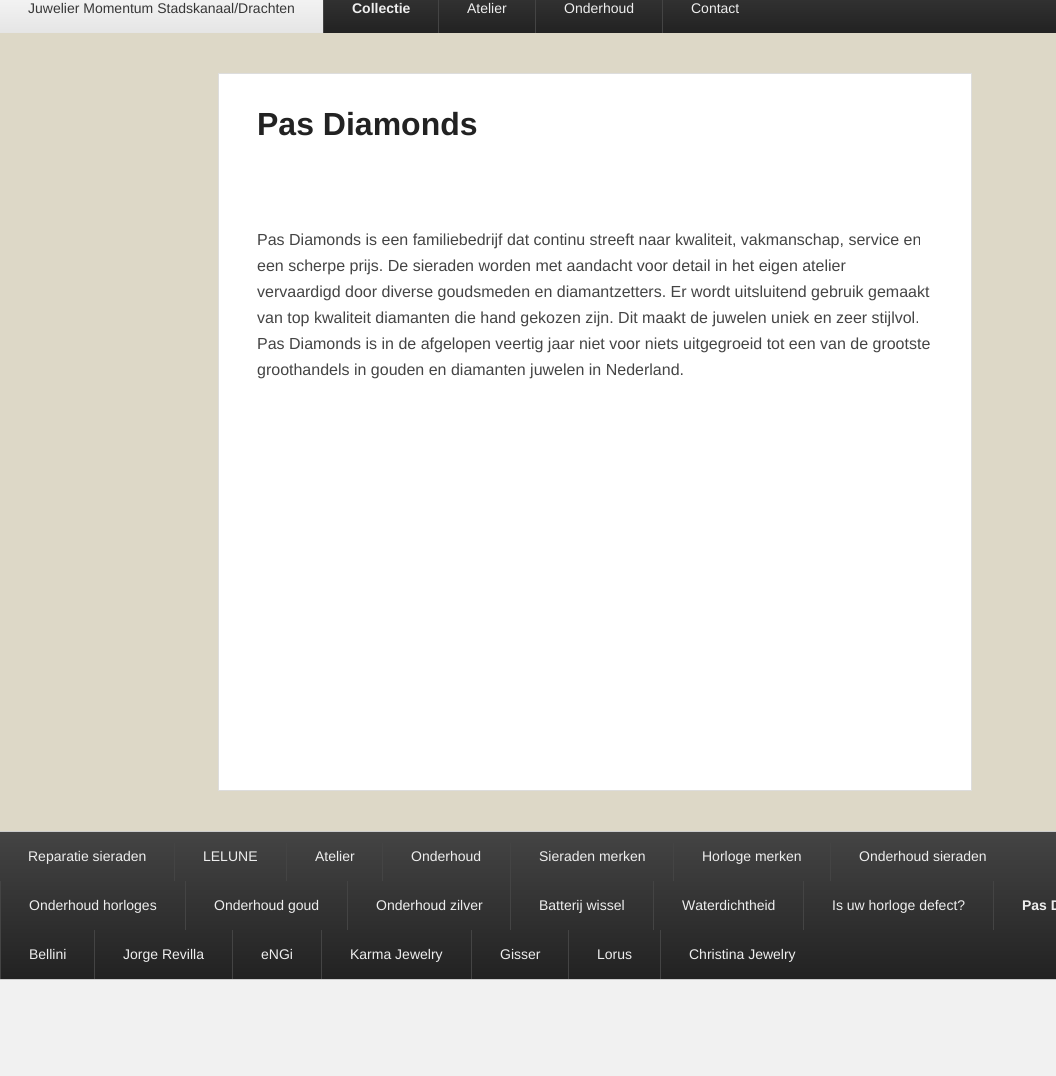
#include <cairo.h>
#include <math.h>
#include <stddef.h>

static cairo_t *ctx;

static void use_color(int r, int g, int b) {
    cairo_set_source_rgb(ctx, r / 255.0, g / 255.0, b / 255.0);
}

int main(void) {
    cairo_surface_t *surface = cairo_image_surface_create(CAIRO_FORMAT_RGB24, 1056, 1076);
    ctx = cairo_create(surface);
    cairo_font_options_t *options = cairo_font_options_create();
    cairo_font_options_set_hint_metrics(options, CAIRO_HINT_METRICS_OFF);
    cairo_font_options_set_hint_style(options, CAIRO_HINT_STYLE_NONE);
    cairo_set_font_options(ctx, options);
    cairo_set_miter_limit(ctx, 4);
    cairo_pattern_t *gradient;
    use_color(221, 216, 199);
    cairo_paint(ctx);
    gradient = cairo_pattern_create_linear(528, -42, 528, 33);
    cairo_pattern_add_color_stop_rgba(gradient, 0, 0.267, 0.267, 0.267, 1);
    cairo_pattern_add_color_stop_rgba(gradient, 1, 0.133, 0.133, 0.133, 1);
    cairo_set_source(ctx, gradient);
    cairo_pattern_destroy(gradient);
    cairo_rectangle(ctx, 324, 0, 732, 33);
    cairo_fill(ctx);
    use_color(68, 68, 68);
    cairo_rectangle(ctx, 323, 0, 1, 33);
    cairo_fill(ctx);
    gradient = cairo_pattern_create_linear(162, -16, 162, 33);
    cairo_pattern_add_color_stop_rgba(gradient, 0, 0.976, 0.976, 0.976, 1);
    cairo_pattern_add_color_stop_rgba(gradient, 1, 0.898, 0.898, 0.898, 1);
    cairo_set_source(ctx, gradient);
    cairo_pattern_destroy(gradient);
    cairo_rectangle(ctx, 0, 0, 323, 33);
    cairo_fill(ctx);
    cairo_select_font_face(ctx, "Liberation Sans", CAIRO_FONT_SLANT_NORMAL, CAIRO_FONT_WEIGHT_NORMAL);
    cairo_set_font_size(ctx, 14);
    use_color(55, 55, 55);
    cairo_move_to(ctx, 28, 13);
    cairo_show_text(ctx, "Juwelier Momentum Stadskanaal/Drachten");
    use_color(68, 68, 68);
    cairo_rectangle(ctx, 438, 0, 1, 33);
    cairo_fill(ctx);
    cairo_select_font_face(ctx, "Liberation Sans", CAIRO_FONT_SLANT_NORMAL, CAIRO_FONT_WEIGHT_BOLD);
    use_color(238, 238, 238);
    cairo_move_to(ctx, 352, 13);
    cairo_show_text(ctx, "Collectie");
    use_color(68, 68, 68);
    cairo_rectangle(ctx, 535, 0, 1, 33);
    cairo_fill(ctx);
    cairo_select_font_face(ctx, "Liberation Sans", CAIRO_FONT_SLANT_NORMAL, CAIRO_FONT_WEIGHT_NORMAL);
    use_color(238, 238, 238);
    cairo_move_to(ctx, 467, 13);
    cairo_show_text(ctx, "Atelier");
    use_color(68, 68, 68);
    cairo_rectangle(ctx, 662, 0, 1, 33);
    cairo_fill(ctx);
    use_color(238, 238, 238);
    cairo_move_to(ctx, 564, 13);
    cairo_show_text(ctx, "Onderhoud");
    cairo_move_to(ctx, 691, 13);
    cairo_show_text(ctx, "Contact");
    use_color(255, 255, 255);
    cairo_rectangle(ctx, 218.5, 73.5, 753, 717);
    cairo_fill_preserve(ctx);
    use_color(221, 221, 221);
    cairo_set_line_width(ctx, 1);
    cairo_stroke(ctx);
    cairo_select_font_face(ctx, "Liberation Sans", CAIRO_FONT_SLANT_NORMAL, CAIRO_FONT_WEIGHT_BOLD);
    cairo_set_font_size(ctx, 32);
    use_color(34, 34, 34);
    cairo_move_to(ctx, 257, 135);
    cairo_show_text(ctx, "Pas Diamonds");
    cairo_select_font_face(ctx, "Liberation Sans", CAIRO_FONT_SLANT_NORMAL, CAIRO_FONT_WEIGHT_NORMAL);
    cairo_set_font_size(ctx, 16);
    use_color(68, 68, 68);
    cairo_move_to(ctx, 257, 245);
    cairo_show_text(ctx, "Pas Diamonds is een familiebedrijf dat continu streeft naar kwaliteit, vakmanschap, service en");
    cairo_move_to(ctx, 257, 271);
    cairo_show_text(ctx, "een scherpe prijs. De sieraden worden met aandacht voor detail in het eigen atelier");
    cairo_move_to(ctx, 257, 297);
    cairo_show_text(ctx, "vervaardigd door diverse goudsmeden en diamantzetters. Er wordt uitsluitend gebruik gemaakt");
    cairo_move_to(ctx, 257, 323);
    cairo_show_text(ctx, "van top kwaliteit diamanten die hand gekozen zijn. Dit maakt de juwelen uniek en zeer stijlvol.");
    cairo_move_to(ctx, 257, 349);
    cairo_show_text(ctx, "Pas Diamonds is in de afgelopen veertig jaar niet voor niets uitgegroeid tot een van de grootste");
    cairo_move_to(ctx, 257, 375);
    cairo_show_text(ctx, "groothandels in gouden en diamanten juwelen in Nederland.");
    use_color(204, 204, 204);
    cairo_rectangle(ctx, 0, 831, 1056, 1);
    cairo_fill(ctx);
    gradient = cairo_pattern_create_linear(528, 832, 528, 979);
    cairo_pattern_add_color_stop_rgba(gradient, 0, 0.267, 0.267, 0.267, 1);
    cairo_pattern_add_color_stop_rgba(gradient, 1, 0.133, 0.133, 0.133, 1);
    cairo_set_source(ctx, gradient);
    cairo_pattern_destroy(gradient);
    cairo_rectangle(ctx, 0, 832, 1056, 147);
    cairo_fill(ctx);
    cairo_set_font_size(ctx, 14);
    use_color(238, 238, 238);
    cairo_move_to(ctx, 28, 861);
    cairo_show_text(ctx, "Reparatie sieraden");
    use_color(68, 68, 68);
    cairo_rectangle(ctx, 174, 843, 1, 38);
    cairo_fill(ctx);
    use_color(238, 238, 238);
    cairo_move_to(ctx, 203, 861);
    cairo_show_text(ctx, "LELUNE");
    use_color(68, 68, 68);
    cairo_rectangle(ctx, 286, 843, 1, 38);
    cairo_fill(ctx);
    use_color(238, 238, 238);
    cairo_move_to(ctx, 315, 861);
    cairo_show_text(ctx, "Atelier");
    use_color(68, 68, 68);
    cairo_rectangle(ctx, 382, 843, 1, 38);
    cairo_fill(ctx);
    use_color(238, 238, 238);
    cairo_move_to(ctx, 411, 861);
    cairo_show_text(ctx, "Onderhoud");
    use_color(68, 68, 68);
    cairo_rectangle(ctx, 510, 843, 1, 87);
    cairo_fill(ctx);
    use_color(238, 238, 238);
    cairo_move_to(ctx, 539, 861);
    cairo_show_text(ctx, "Sieraden merken");
    use_color(68, 68, 68);
    cairo_rectangle(ctx, 673, 843, 1, 38);
    cairo_fill(ctx);
    use_color(238, 238, 238);
    cairo_move_to(ctx, 702, 861);
    cairo_show_text(ctx, "Horloge merken");
    use_color(68, 68, 68);
    cairo_rectangle(ctx, 830, 843, 1, 38);
    cairo_fill(ctx);
    use_color(238, 238, 238);
    cairo_move_to(ctx, 859, 861);
    cairo_show_text(ctx, "Onderhoud sieraden");
    use_color(68, 68, 68);
    cairo_rectangle(ctx, 0, 881, 1, 98);
    cairo_fill(ctx);
    use_color(238, 238, 238);
    cairo_move_to(ctx, 29, 910);
    cairo_show_text(ctx, "Onderhoud horloges");
    use_color(68, 68, 68);
    cairo_rectangle(ctx, 185, 881, 1, 49);
    cairo_fill(ctx);
    use_color(238, 238, 238);
    cairo_move_to(ctx, 214, 910);
    cairo_show_text(ctx, "Onderhoud goud");
    use_color(68, 68, 68);
    cairo_rectangle(ctx, 347, 881, 1, 49);
    cairo_fill(ctx);
    use_color(238, 238, 238);
    cairo_move_to(ctx, 376, 910);
    cairo_show_text(ctx, "Onderhoud zilver");
    cairo_move_to(ctx, 539, 910);
    cairo_show_text(ctx, "Batterij wissel");
    use_color(68, 68, 68);
    cairo_rectangle(ctx, 653, 881, 1, 49);
    cairo_fill(ctx);
    use_color(238, 238, 238);
    cairo_move_to(ctx, 682, 910);
    cairo_show_text(ctx, "Waterdichtheid");
    use_color(68, 68, 68);
    cairo_rectangle(ctx, 803, 881, 1, 49);
    cairo_fill(ctx);
    use_color(238, 238, 238);
    cairo_move_to(ctx, 832, 910);
    cairo_show_text(ctx, "Is uw horloge defect?");
    use_color(68, 68, 68);
    cairo_rectangle(ctx, 993, 881, 1, 49);
    cairo_fill(ctx);
    cairo_select_font_face(ctx, "Liberation Sans", CAIRO_FONT_SLANT_NORMAL, CAIRO_FONT_WEIGHT_BOLD);
    use_color(238, 238, 238);
    cairo_move_to(ctx, 1022, 910);
    cairo_show_text(ctx, "Pas D");
    cairo_select_font_face(ctx, "Liberation Sans", CAIRO_FONT_SLANT_NORMAL, CAIRO_FONT_WEIGHT_NORMAL);
    cairo_move_to(ctx, 29, 959);
    cairo_show_text(ctx, "Bellini");
    use_color(68, 68, 68);
    cairo_rectangle(ctx, 94, 930, 1, 49);
    cairo_fill(ctx);
    use_color(238, 238, 238);
    cairo_move_to(ctx, 123, 959);
    cairo_show_text(ctx, "Jorge Revilla");
    use_color(68, 68, 68);
    cairo_rectangle(ctx, 232, 930, 1, 49);
    cairo_fill(ctx);
    use_color(238, 238, 238);
    cairo_move_to(ctx, 261, 959);
    cairo_show_text(ctx, "eNGi");
    use_color(68, 68, 68);
    cairo_rectangle(ctx, 321, 930, 1, 49);
    cairo_fill(ctx);
    use_color(238, 238, 238);
    cairo_move_to(ctx, 350, 959);
    cairo_show_text(ctx, "Karma Jewelry");
    use_color(68, 68, 68);
    cairo_rectangle(ctx, 471, 930, 1, 49);
    cairo_fill(ctx);
    use_color(238, 238, 238);
    cairo_move_to(ctx, 500, 959);
    cairo_show_text(ctx, "Gisser");
    use_color(68, 68, 68);
    cairo_rectangle(ctx, 568, 930, 1, 49);
    cairo_fill(ctx);
    use_color(238, 238, 238);
    cairo_move_to(ctx, 597, 959);
    cairo_show_text(ctx, "Lorus");
    use_color(68, 68, 68);
    cairo_rectangle(ctx, 660, 930, 1, 49);
    cairo_fill(ctx);
    use_color(238, 238, 238);
    cairo_move_to(ctx, 689, 959);
    cairo_show_text(ctx, "Christina Jewelry");
    use_color(241, 241, 241);
    cairo_rectangle(ctx, 0, 980, 1056, 96);
    cairo_fill(ctx);
    use_color(204, 204, 204);
    cairo_rectangle(ctx, 0, 979, 1056, 1);
    cairo_fill(ctx);
    cairo_surface_write_to_png(surface, "result.png");
    cairo_font_options_destroy(options);
    cairo_destroy(ctx);
    cairo_surface_destroy(surface);
    return 0;
}
